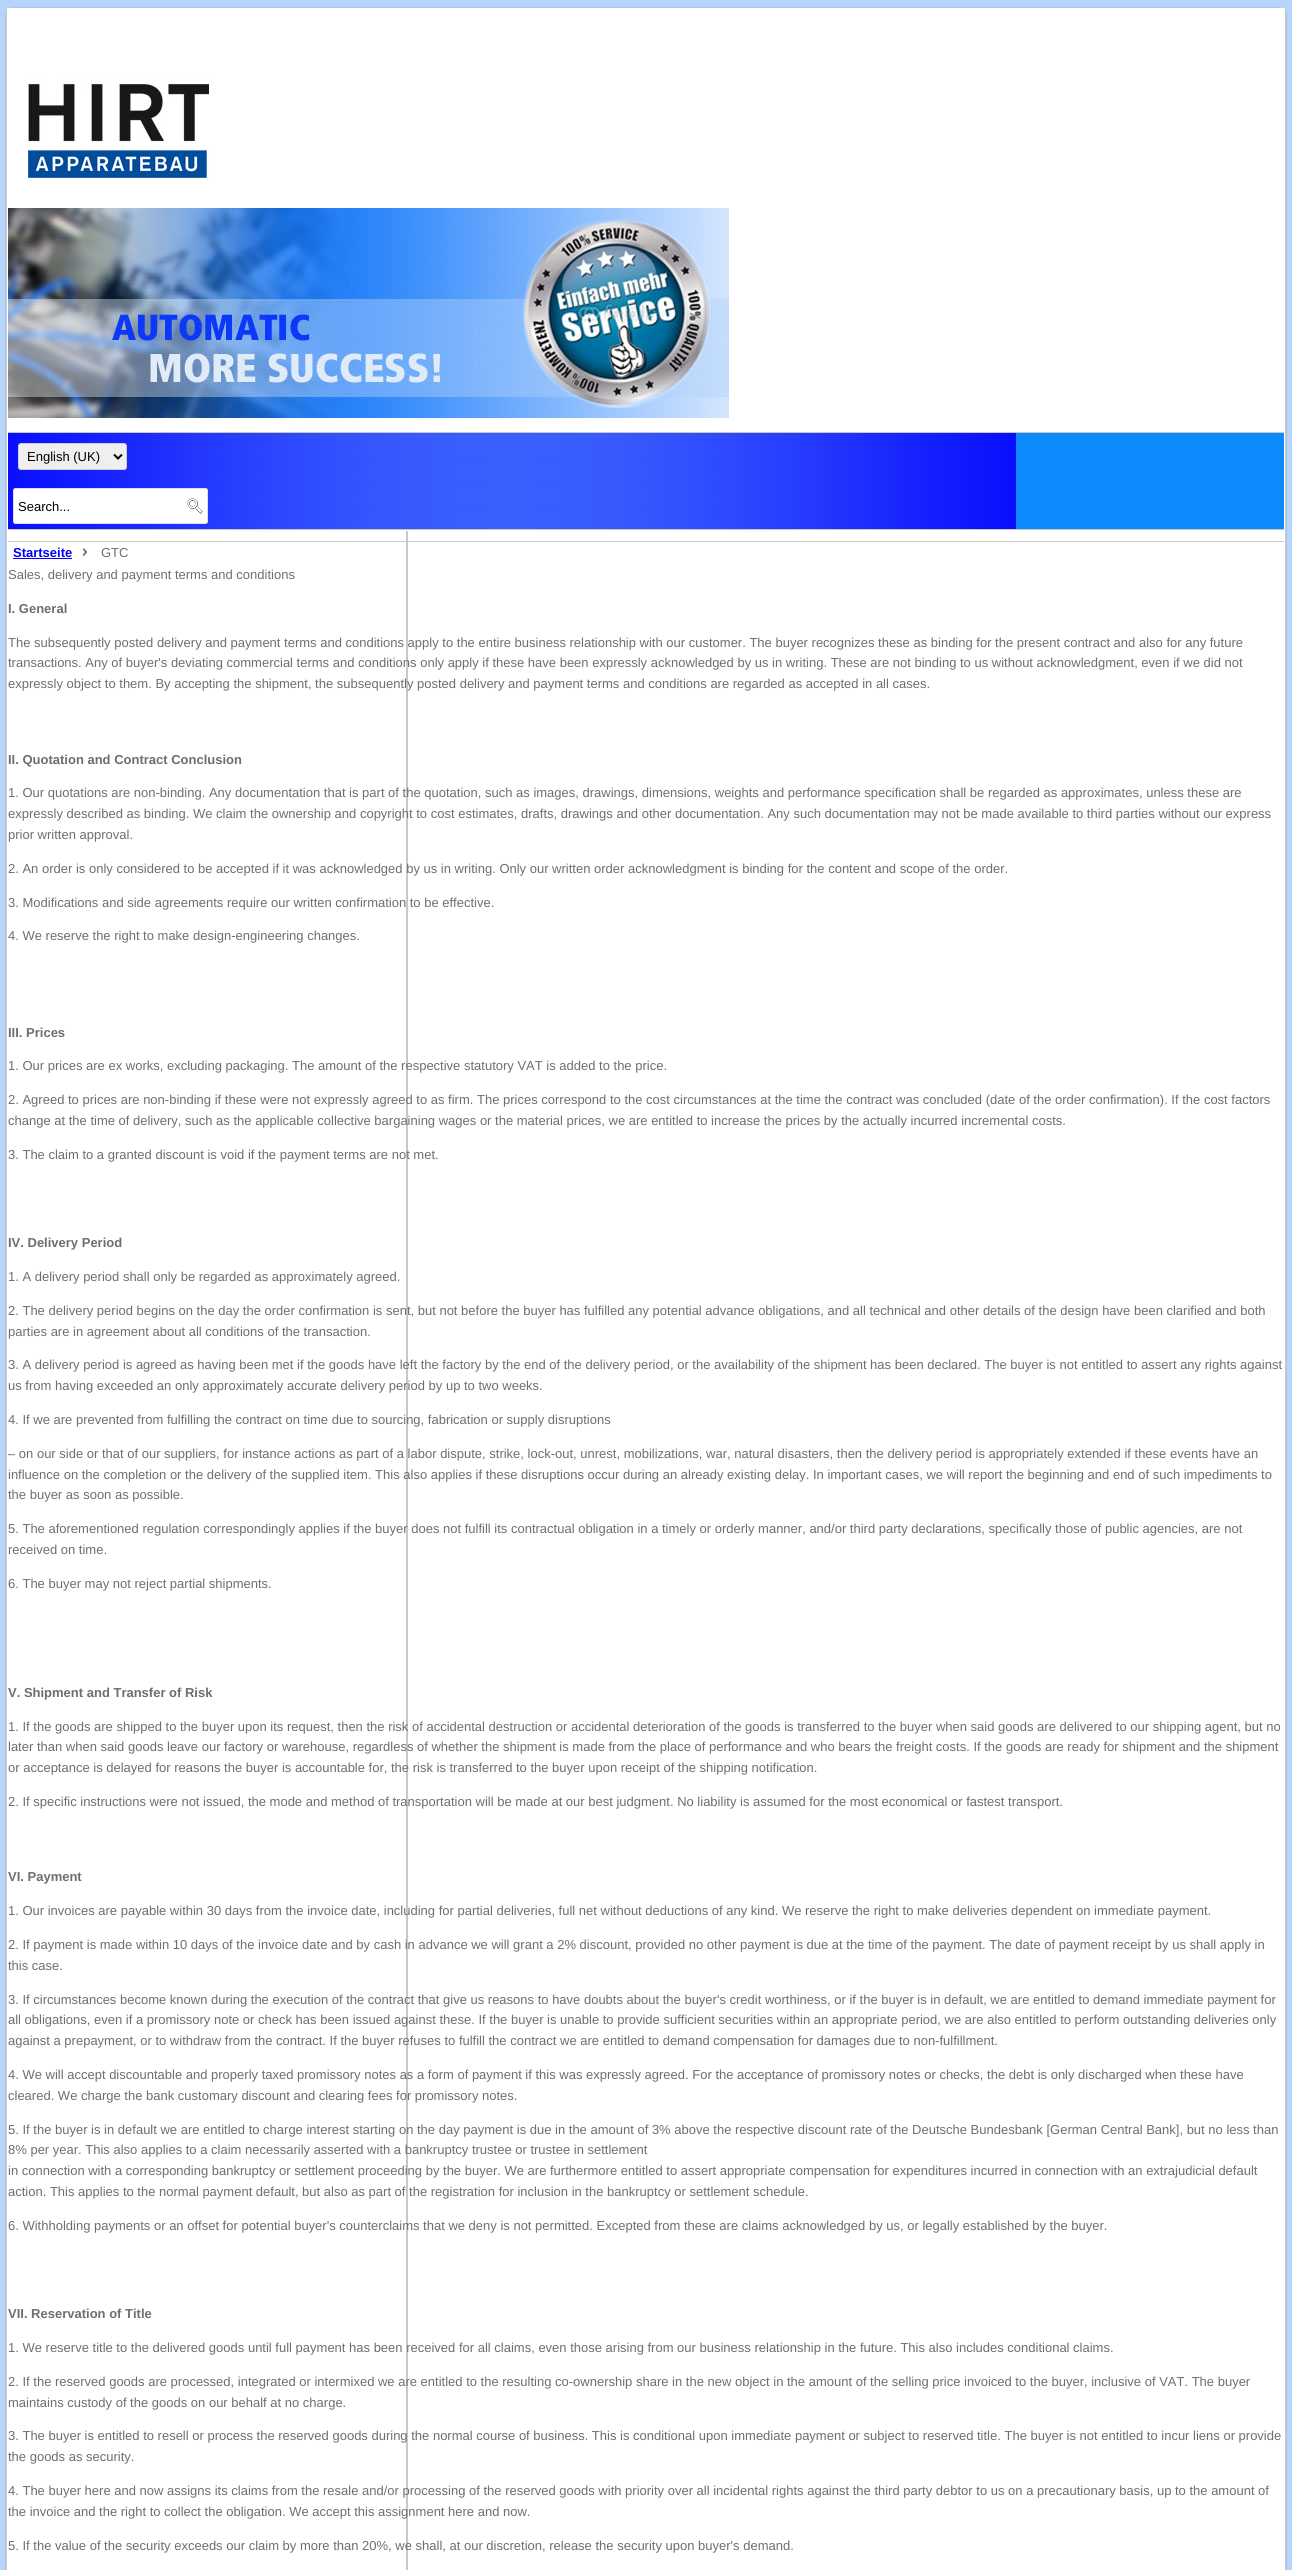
#include <cairo.h>
#include <math.h>
#include <stddef.h>

static cairo_t *ctx;

static void use_color(int r, int g, int b) {
    cairo_set_source_rgb(ctx, r / 255.0, g / 255.0, b / 255.0);
}

static void round_rect(double x, double y, double w, double h, double r) {
    cairo_new_sub_path(ctx);
    cairo_arc(ctx, x + w - r, y + h - r, r, 0, M_PI / 2);
    cairo_arc(ctx, x + r, y + h - r, r, M_PI / 2, M_PI);
    cairo_arc(ctx, x + r, y + r, r, M_PI, 1.5 * M_PI);
    cairo_arc(ctx, x + w - r, y + r, r, 1.5 * M_PI, 2 * M_PI);
    cairo_close_path(ctx);
}

static void shadow(double x, double y, double w, double h, double r, double blur, double alpha) {
    cairo_push_group_with_content(ctx, CAIRO_CONTENT_ALPHA);
    cairo_set_operator(ctx, CAIRO_OPERATOR_SOURCE);
    for (int i = 15; i >= -15 && fmin(w, h) + blur * i / 3 > 0; i -= 2) {
        double e = blur * i / 6;
        cairo_set_source_rgba(ctx, 0, 0, 0, alpha * erfc((i - 1) / 8.5) / 2);
        round_rect(x - e, y - e, w + 2 * e, h + 2 * e, fmax(0, fmin(r + e + blur * .6, fmin(w, h) / 2 + e)));
        cairo_fill(ctx);
    }
    cairo_pattern_t *soft = cairo_pop_group(ctx);
    cairo_mask(ctx, soft);
    cairo_pattern_destroy(soft);
}

static void picture(const char *path, double x, double y, double w, double h) {
    cairo_surface_t *image = cairo_image_surface_create_from_png(path);
    cairo_save(ctx);
    cairo_set_source_surface(ctx, image, x, y);
    cairo_rectangle(ctx, x, y, w, h);
    cairo_fill(ctx);
    cairo_restore(ctx);
    cairo_surface_destroy(image);
}

int main(void) {
    cairo_surface_t *surface = cairo_image_surface_create(CAIRO_FORMAT_RGB24, 1292, 2570);
    ctx = cairo_create(surface);
    cairo_font_options_t *options = cairo_font_options_create();
    cairo_font_options_set_hint_metrics(options, CAIRO_HINT_METRICS_OFF);
    cairo_font_options_set_hint_style(options, CAIRO_HINT_STYLE_NONE);
    cairo_set_font_options(ctx, options);
    cairo_set_miter_limit(ctx, 4);
    use_color(183, 212, 250);
    cairo_paint(ctx);
    use_color(0, 0, 0);
    shadow(6, 8, 1280, 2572, 7, 1, 0.2);
    use_color(200, 200, 200);
    cairo_set_fill_rule(ctx, CAIRO_FILL_RULE_EVEN_ODD);
    cairo_new_path(ctx);
    cairo_move_to(ctx, 6, 8);
    cairo_line_to(ctx, 1286, 8);
    cairo_line_to(ctx, 1286, 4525);
    cairo_curve_to(ctx, 1286, 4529, 1283, 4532, 1279, 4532);
    cairo_line_to(ctx, 13, 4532);
    cairo_curve_to(ctx, 9, 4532, 6, 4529, 6, 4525);
    cairo_close_path(ctx);
    cairo_move_to(ctx, 7, 8);
    cairo_line_to(ctx, 1285, 8);
    cairo_line_to(ctx, 1285, 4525);
    cairo_curve_to(ctx, 1285, 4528, 1282, 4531, 1279, 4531);
    cairo_line_to(ctx, 13, 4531);
    cairo_curve_to(ctx, 10, 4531, 7, 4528, 7, 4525);
    cairo_close_path(ctx);
    cairo_fill(ctx);
    use_color(255, 255, 255);
    cairo_new_path(ctx);
    cairo_move_to(ctx, 7, 8);
    cairo_line_to(ctx, 1285, 8);
    cairo_line_to(ctx, 1285, 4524);
    cairo_curve_to(ctx, 1285, 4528, 1282, 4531, 1278, 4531);
    cairo_line_to(ctx, 14, 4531);
    cairo_curve_to(ctx, 10, 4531, 7, 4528, 7, 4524);
    cairo_close_path(ctx);
    cairo_move_to(ctx, 8, 8);
    cairo_line_to(ctx, 1284, 8);
    cairo_line_to(ctx, 1284, 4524);
    cairo_curve_to(ctx, 1284, 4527, 1281, 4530, 1278, 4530);
    cairo_line_to(ctx, 14, 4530);
    cairo_curve_to(ctx, 11, 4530, 8, 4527, 8, 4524);
    cairo_close_path(ctx);
    cairo_fill(ctx);
    cairo_rectangle(ctx, 8, 8, 1276, 424);
    cairo_fill(ctx);
    use_color(200, 200, 200);
    cairo_rectangle(ctx, 8, 432, 1276, 1);
    cairo_fill(ctx);
    picture("img1.png", 28, 77, 181, 104);
    picture("img2.png", 8, 208, 721, 210);
    use_color(255, 255, 255);
    cairo_rectangle(ctx, 8, 530, 1276, 2040);
    cairo_fill(ctx);
    use_color(13, 139, 253);
    cairo_rectangle(ctx, 1016, 433, 268, 96);
    cairo_fill(ctx);
    picture("img3.png", 8, 433, 1008, 96);
    use_color(200, 200, 200);
    cairo_rectangle(ctx, 8, 529, 1276, 1);
    cairo_fill(ctx);
    use_color(239, 239, 239);
    round_rect(18.5, 443.5, 108, 26, 2.5);
    cairo_fill_preserve(ctx);
    use_color(204, 204, 204);
    cairo_set_line_width(ctx, 1);
    cairo_stroke(ctx);
    cairo_new_path(ctx);
    cairo_move_to(ctx, 114, 454.5);
    cairo_line_to(ctx, 118, 458.5);
    cairo_line_to(ctx, 122, 454.5);
    use_color(0, 0, 0);
    cairo_set_line_width(ctx, 2);
    cairo_stroke(ctx);
    cairo_select_font_face(ctx, "Liberation Sans", CAIRO_FONT_SLANT_NORMAL, CAIRO_FONT_WEIGHT_NORMAL);
    cairo_set_font_size(ctx, 13);
    cairo_move_to(ctx, 27, 461);
    cairo_show_text(ctx, "English (UK)");
    use_color(255, 255, 255);
    round_rect(13, 488, 195, 36, 3);
    cairo_fill(ctx);
    picture("img4.png", 187, 498, 16, 16);
    round_rect(13.5, 488.5, 194, 35, 2.5);
    use_color(223, 223, 223);
    cairo_set_line_width(ctx, 1);
    cairo_stroke(ctx);
    use_color(0, 0, 0);
    cairo_move_to(ctx, 18, 511);
    cairo_show_text(ctx, "Search...");
    use_color(200, 200, 200);
    cairo_rectangle(ctx, 406, 531, 2, 2039);
    cairo_fill(ctx);
    cairo_rectangle(ctx, 8, 541, 1276, 1);
    cairo_fill(ctx);
    cairo_select_font_face(ctx, "Liberation Sans", CAIRO_FONT_SLANT_NORMAL, CAIRO_FONT_WEIGHT_BOLD);
    use_color(0, 0, 254);
    cairo_move_to(ctx, 13, 557);
    cairo_show_text(ctx, "Startseite");
    cairo_rectangle(ctx, 13, 558, 59, 1);
    cairo_fill(ctx);
    picture("img5.png", 83, 548, 4, 8);
    picture("img6.png", 83, 549, 4, 7);
    cairo_select_font_face(ctx, "Liberation Sans", CAIRO_FONT_SLANT_NORMAL, CAIRO_FONT_WEIGHT_NORMAL);
    use_color(110, 110, 110);
    cairo_move_to(ctx, 101, 557);
    cairo_show_text(ctx, "GTC");
    cairo_move_to(ctx, 8, 579);
    cairo_show_text(ctx, "Sales, delivery and payment terms and conditions");
    cairo_select_font_face(ctx, "Liberation Sans", CAIRO_FONT_SLANT_NORMAL, CAIRO_FONT_WEIGHT_BOLD);
    cairo_move_to(ctx, 8, 613);
    cairo_show_text(ctx, "I. General");
    cairo_select_font_face(ctx, "Liberation Sans", CAIRO_FONT_SLANT_NORMAL, CAIRO_FONT_WEIGHT_NORMAL);
    cairo_move_to(ctx, 8, 647);
    cairo_show_text(ctx, "The subsequently posted delivery and payment terms and conditions apply to the entire business relationship with our customer. The buyer recognizes these as binding for the present contract and also for any future");
    cairo_move_to(ctx, 8, 667);
    cairo_show_text(ctx, "transactions. Any of buyer's deviating commercial terms and conditions only apply if these have been expressly acknowledged by us in writing. These are not binding to us without acknowledgment, even if we did not");
    cairo_move_to(ctx, 8, 688);
    cairo_show_text(ctx, "expressly object to them. By accepting the shipment, the subsequently posted delivery and payment terms and conditions are regarded as accepted in all cases.");
    cairo_select_font_face(ctx, "Liberation Sans", CAIRO_FONT_SLANT_NORMAL, CAIRO_FONT_WEIGHT_BOLD);
    cairo_move_to(ctx, 8, 764);
    cairo_show_text(ctx, "II. Quotation and Contract Conclusion");
    cairo_select_font_face(ctx, "Liberation Sans", CAIRO_FONT_SLANT_NORMAL, CAIRO_FONT_WEIGHT_NORMAL);
    cairo_move_to(ctx, 8, 797);
    cairo_show_text(ctx, "1. Our quotations are non-binding. Any documentation that is part of the quotation, such as images, drawings, dimensions, weights and performance specification shall be regarded as approximates, unless these are");
    cairo_move_to(ctx, 8, 818);
    cairo_show_text(ctx, "expressly described as binding. We claim the ownership and copyright to cost estimates, drafts, drawings and other documentation. Any such documentation may not be made available to third parties without our express");
    cairo_move_to(ctx, 8, 839);
    cairo_show_text(ctx, "prior written approval.");
    cairo_move_to(ctx, 8, 873);
    cairo_show_text(ctx, "2. An order is only considered to be accepted if it was acknowledged by us in writing. Only our written order acknowledgment is binding for the content and scope of the order.");
    cairo_move_to(ctx, 8, 907);
    cairo_show_text(ctx, "3. Modifications and side agreements require our written confirmation to be effective.");
    cairo_move_to(ctx, 8, 940);
    cairo_show_text(ctx, "4. We reserve the right to make design-engineering changes.");
    cairo_select_font_face(ctx, "Liberation Sans", CAIRO_FONT_SLANT_NORMAL, CAIRO_FONT_WEIGHT_BOLD);
    cairo_move_to(ctx, 8, 1037);
    cairo_show_text(ctx, "III. Prices");
    cairo_select_font_face(ctx, "Liberation Sans", CAIRO_FONT_SLANT_NORMAL, CAIRO_FONT_WEIGHT_NORMAL);
    cairo_move_to(ctx, 8, 1070);
    cairo_show_text(ctx, "1. Our prices are ex works, excluding packaging. The amount of the respective statutory VAT is added to the price.");
    cairo_move_to(ctx, 8, 1104);
    cairo_show_text(ctx, "2. Agreed to prices are non-binding if these were not expressly agreed to as firm. The prices correspond to the cost circumstances at the time the contract was concluded (date of the order confirmation). If the cost factors");
    cairo_move_to(ctx, 8, 1125);
    cairo_show_text(ctx, "change at the time of delivery, such as the applicable collective bargaining wages or the material prices, we are entitled to increase the prices by the actually incurred incremental costs.");
    cairo_move_to(ctx, 8, 1159);
    cairo_show_text(ctx, "3. The claim to a granted discount is void if the payment terms are not met.");
    cairo_select_font_face(ctx, "Liberation Sans", CAIRO_FONT_SLANT_NORMAL, CAIRO_FONT_WEIGHT_BOLD);
    cairo_move_to(ctx, 8, 1247);
    cairo_show_text(ctx, "IV. Delivery Period");
    cairo_select_font_face(ctx, "Liberation Sans", CAIRO_FONT_SLANT_NORMAL, CAIRO_FONT_WEIGHT_NORMAL);
    cairo_move_to(ctx, 8, 1281);
    cairo_show_text(ctx, "1. A delivery period shall only be regarded as approximately agreed.");
    cairo_move_to(ctx, 8, 1315);
    cairo_show_text(ctx, "2. The delivery period begins on the day the order confirmation is sent, but not before the buyer has fulfilled any potential advance obligations, and all technical and other details of the design have been clarified and both");
    cairo_move_to(ctx, 8, 1336);
    cairo_show_text(ctx, "parties are in agreement about all conditions of the transaction.");
    cairo_move_to(ctx, 8, 1369);
    cairo_show_text(ctx, "3. A delivery period is agreed as having been met if the goods have left the factory by the end of the delivery period, or the availability of the shipment has been declared. The buyer is not entitled to assert any rights against");
    cairo_move_to(ctx, 8, 1390);
    cairo_show_text(ctx, "us from having exceeded an only approximately accurate delivery period by up to two weeks.");
    cairo_move_to(ctx, 8, 1424);
    cairo_show_text(ctx, "4. If we are prevented from fulfilling the contract on time due to sourcing, fabrication or supply disruptions");
    cairo_move_to(ctx, 8, 1458);
    cairo_show_text(ctx, "– on our side or that of our suppliers, for instance actions as part of a labor dispute, strike, lock-out, unrest, mobilizations, war, natural disasters, then the delivery period is appropriately extended if these events have an");
    cairo_move_to(ctx, 8, 1479);
    cairo_show_text(ctx, "influence on the completion or the delivery of the supplied item. This also applies if these disruptions occur during an already existing delay. In important cases, we will report the beginning and end of such impediments to");
    cairo_move_to(ctx, 8, 1499);
    cairo_show_text(ctx, "the buyer as soon as possible.");
    cairo_move_to(ctx, 8, 1533);
    cairo_show_text(ctx, "5. The aforementioned regulation correspondingly applies if the buyer does not fulfill its contractual obligation in a timely or orderly manner, and/or third party declarations, specifically those of public agencies, are not");
    cairo_move_to(ctx, 8, 1554);
    cairo_show_text(ctx, "received on time.");
    cairo_move_to(ctx, 8, 1588);
    cairo_show_text(ctx, "6. The buyer may not reject partial shipments.");
    cairo_select_font_face(ctx, "Liberation Sans", CAIRO_FONT_SLANT_NORMAL, CAIRO_FONT_WEIGHT_BOLD);
    cairo_move_to(ctx, 8, 1697);
    cairo_show_text(ctx, "V. Shipment and Transfer of Risk");
    cairo_select_font_face(ctx, "Liberation Sans", CAIRO_FONT_SLANT_NORMAL, CAIRO_FONT_WEIGHT_NORMAL);
    cairo_move_to(ctx, 8, 1731);
    cairo_show_text(ctx, "1. If the goods are shipped to the buyer upon its request, then the risk of accidental destruction or accidental deterioration of the goods is transferred to the buyer when said goods are delivered to our shipping agent, but no");
    cairo_move_to(ctx, 8, 1751);
    cairo_show_text(ctx, "later than when said goods leave our factory or warehouse, regardless of whether the shipment is made from the place of performance and who bears the freight costs. If the goods are ready for shipment and the shipment");
    cairo_move_to(ctx, 8, 1772);
    cairo_show_text(ctx, "or acceptance is delayed for reasons the buyer is accountable for, the risk is transferred to the buyer upon receipt of the shipping notification.");
    cairo_move_to(ctx, 8, 1806);
    cairo_show_text(ctx, "2. If specific instructions were not issued, the mode and method of transportation will be made at our best judgment. No liability is assumed for the most economical or fastest transport.");
    cairo_select_font_face(ctx, "Liberation Sans", CAIRO_FONT_SLANT_NORMAL, CAIRO_FONT_WEIGHT_BOLD);
    cairo_move_to(ctx, 8, 1881);
    cairo_show_text(ctx, "VI. Payment");
    cairo_select_font_face(ctx, "Liberation Sans", CAIRO_FONT_SLANT_NORMAL, CAIRO_FONT_WEIGHT_NORMAL);
    cairo_move_to(ctx, 8, 1915);
    cairo_show_text(ctx, "1. Our invoices are payable within 30 days from the invoice date, including for partial deliveries, full net without deductions of any kind. We reserve the right to make deliveries dependent on immediate payment.");
    cairo_move_to(ctx, 8, 1949);
    cairo_show_text(ctx, "2. If payment is made within 10 days of the invoice date and by cash in advance we will grant a 2% discount, provided no other payment is due at the time of the payment. The date of payment receipt by us shall apply in");
    cairo_move_to(ctx, 8, 1970);
    cairo_show_text(ctx, "this case.");
    cairo_move_to(ctx, 8, 2004);
    cairo_show_text(ctx, "3. If circumstances become known during the execution of the contract that give us reasons to have doubts about the buyer's credit worthiness, or if the buyer is in default, we are entitled to demand immediate payment for");
    cairo_move_to(ctx, 8, 2024);
    cairo_show_text(ctx, "all obligations, even if a promissory note or check has been issued against these. If the buyer is unable to provide sufficient securities within an appropriate period, we are also entitled to perform outstanding deliveries only");
    cairo_move_to(ctx, 8, 2045);
    cairo_show_text(ctx, "against a prepayment, or to withdraw from the contract. If the buyer refuses to fulfill the contract we are entitled to demand compensation for damages due to non-fulfillment.");
    cairo_move_to(ctx, 8, 2079);
    cairo_show_text(ctx, "4. We will accept discountable and properly taxed promissory notes as a form of payment if this was expressly agreed. For the acceptance of promissory notes or checks, the debt is only discharged when these have");
    cairo_move_to(ctx, 8, 2100);
    cairo_show_text(ctx, "cleared. We charge the bank customary discount and clearing fees for promissory notes.");
    cairo_move_to(ctx, 8, 2134);
    cairo_show_text(ctx, "5. If the buyer is in default we are entitled to charge interest starting on the day payment is due in the amount of 3% above the respective discount rate of the Deutsche Bundesbank [German Central Bank], but no less than");
    cairo_move_to(ctx, 8, 2154);
    cairo_show_text(ctx, "8% per year. This also applies to a claim necessarily asserted with a bankruptcy trustee or trustee in settlement");
    cairo_move_to(ctx, 8, 2175);
    cairo_show_text(ctx, "in connection with a corresponding bankruptcy or settlement proceeding by the buyer. We are furthermore entitled to assert appropriate compensation for expenditures incurred in connection with an extrajudicial default");
    cairo_move_to(ctx, 8, 2196);
    cairo_show_text(ctx, "action. This applies to the normal payment default, but also as part of the registration for inclusion in the bankruptcy or settlement schedule.");
    cairo_move_to(ctx, 8, 2230);
    cairo_show_text(ctx, "6. Withholding payments or an offset for potential buyer's counterclaims that we deny is not permitted. Excepted from these are claims acknowledged by us, or legally established by the buyer.");
    cairo_select_font_face(ctx, "Liberation Sans", CAIRO_FONT_SLANT_NORMAL, CAIRO_FONT_WEIGHT_BOLD);
    cairo_move_to(ctx, 8, 2318);
    cairo_show_text(ctx, "VII. Reservation of Title");
    cairo_select_font_face(ctx, "Liberation Sans", CAIRO_FONT_SLANT_NORMAL, CAIRO_FONT_WEIGHT_NORMAL);
    cairo_move_to(ctx, 8, 2352);
    cairo_show_text(ctx, "1. We reserve title to the delivered goods until full payment has been received for all claims, even those arising from our business relationship in the future. This also includes conditional claims.");
    cairo_move_to(ctx, 8, 2386);
    cairo_show_text(ctx, "2. If the reserved goods are processed, integrated or intermixed we are entitled to the resulting co-ownership share in the new object in the amount of the selling price invoiced to the buyer, inclusive of VAT. The buyer");
    cairo_move_to(ctx, 8, 2407);
    cairo_show_text(ctx, "maintains custody of the goods on our behalf at no charge.");
    cairo_move_to(ctx, 8, 2440);
    cairo_show_text(ctx, "3. The buyer is entitled to resell or process the reserved goods during the normal course of business. This is conditional upon immediate payment or subject to reserved title. The buyer is not entitled to incur liens or provide");
    cairo_move_to(ctx, 8, 2461);
    cairo_show_text(ctx, "the goods as security.");
    cairo_move_to(ctx, 8, 2495);
    cairo_show_text(ctx, "4. The buyer here and now assigns its claims from the resale and/or processing of the reserved goods with priority over all incidental rights against the third party debtor to us on a precautionary basis, up to the amount of");
    cairo_move_to(ctx, 8, 2516);
    cairo_show_text(ctx, "the invoice and the right to collect the obligation. We accept this assignment here and now.");
    cairo_move_to(ctx, 8, 2550);
    cairo_show_text(ctx, "5. If the value of the security exceeds our claim by more than 20%, we shall, at our discretion, release the security upon buyer's demand.");
    cairo_surface_write_to_png(surface, "result.png");
    cairo_font_options_destroy(options);
    cairo_destroy(ctx);
    cairo_surface_destroy(surface);
    return 0;
}
